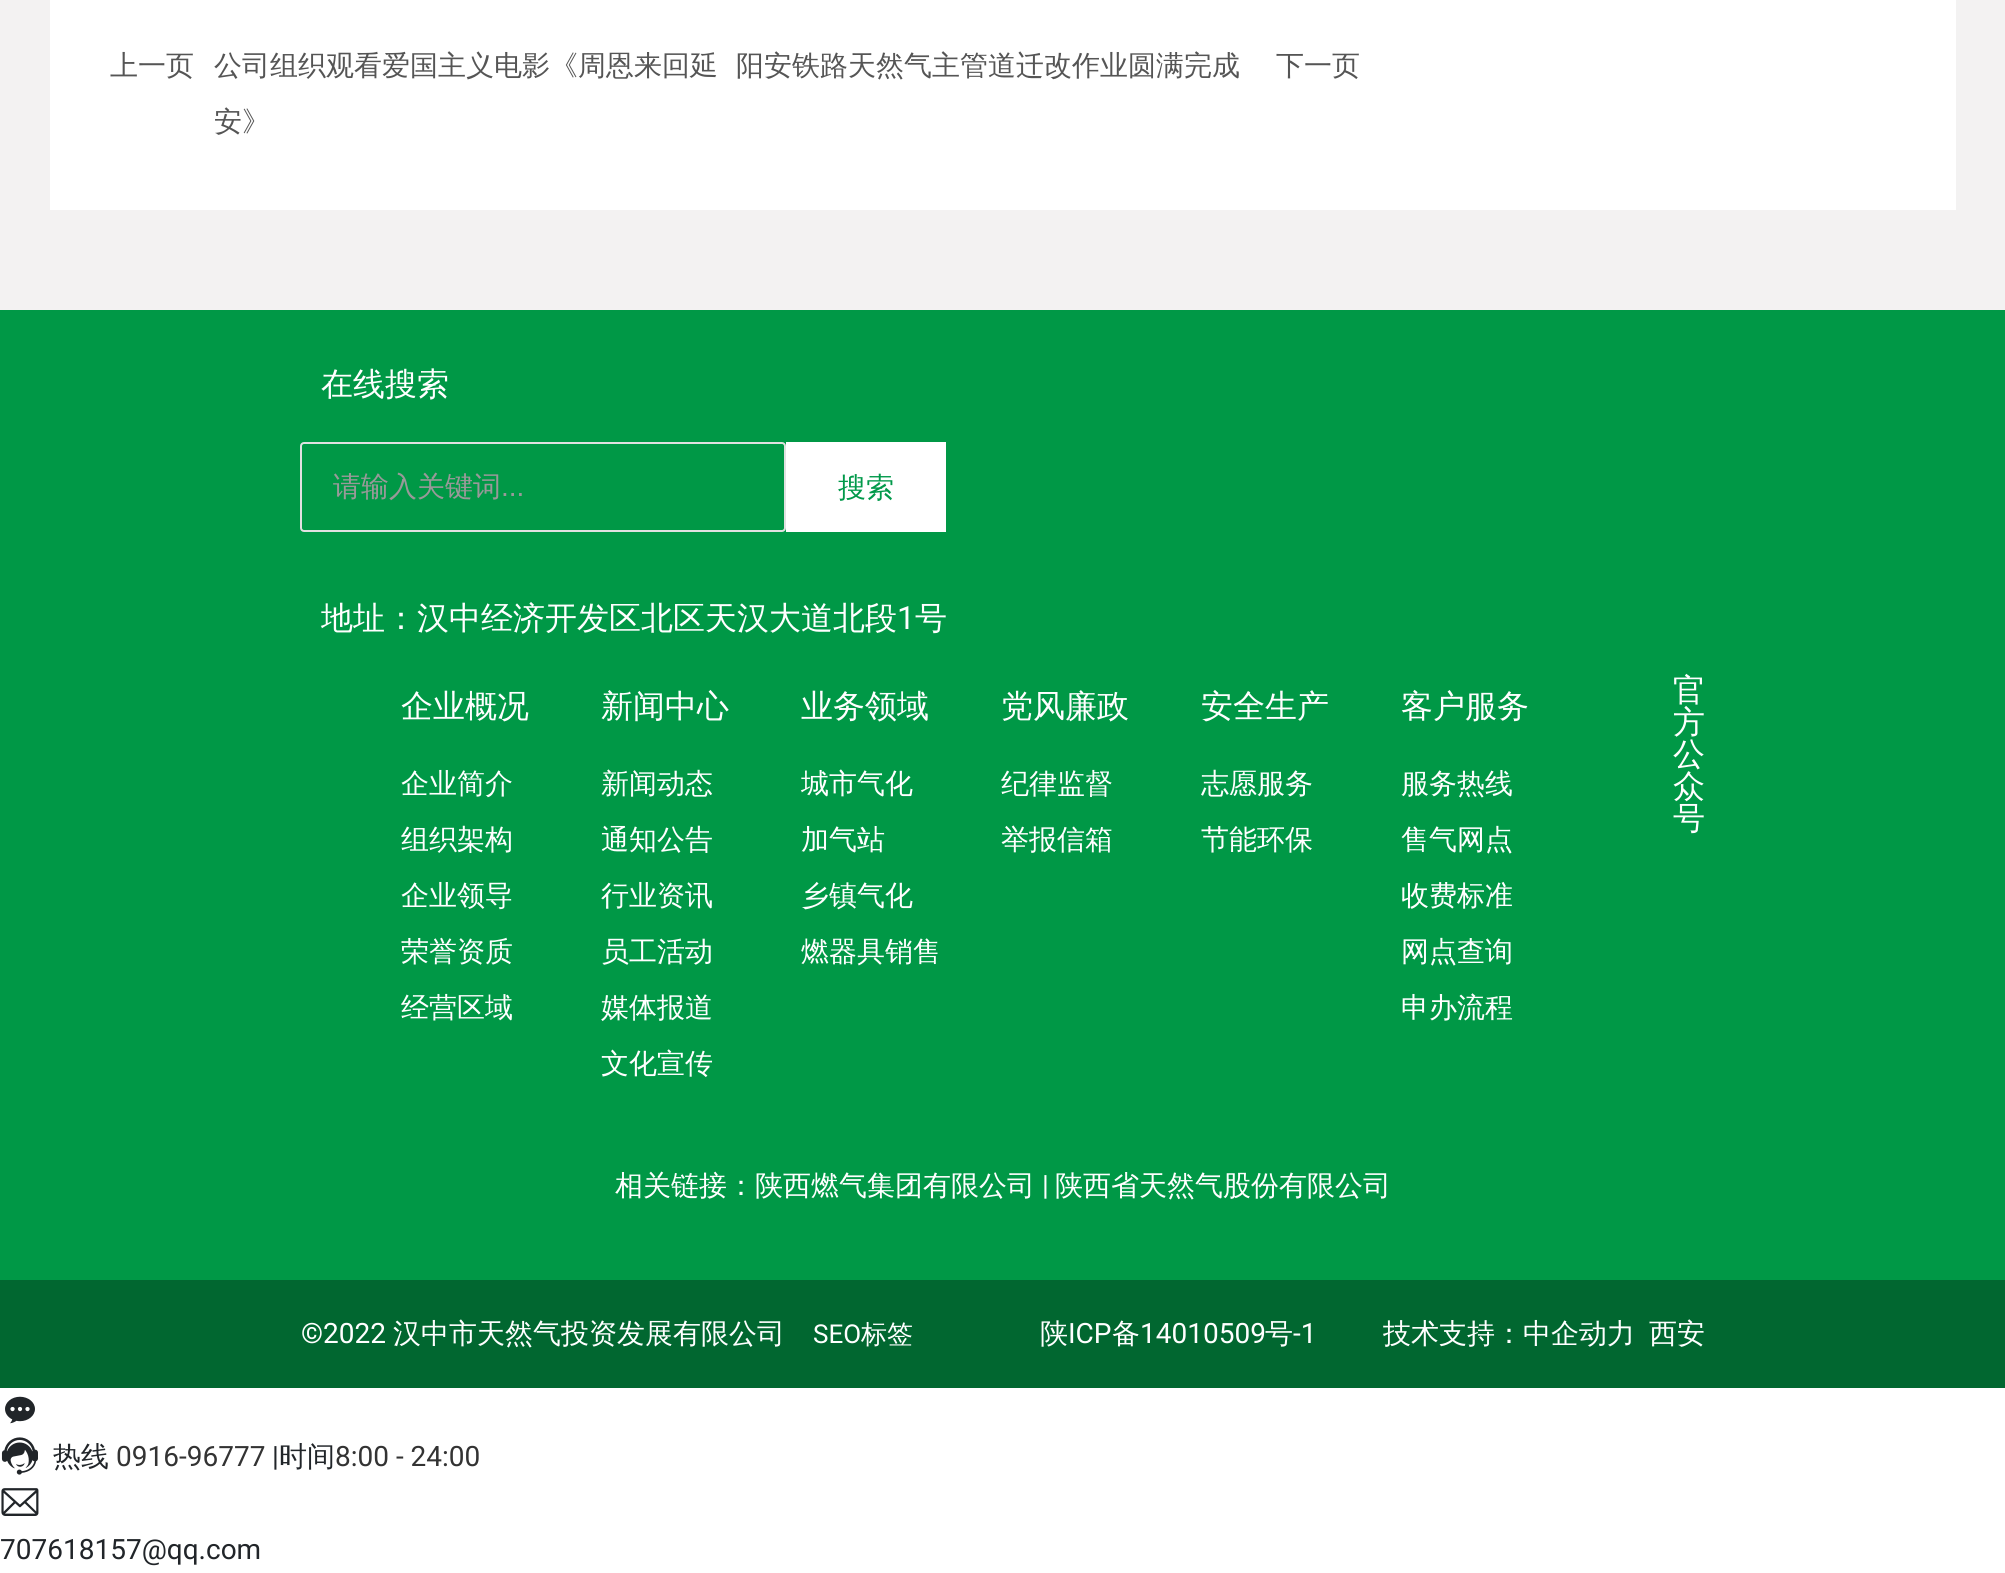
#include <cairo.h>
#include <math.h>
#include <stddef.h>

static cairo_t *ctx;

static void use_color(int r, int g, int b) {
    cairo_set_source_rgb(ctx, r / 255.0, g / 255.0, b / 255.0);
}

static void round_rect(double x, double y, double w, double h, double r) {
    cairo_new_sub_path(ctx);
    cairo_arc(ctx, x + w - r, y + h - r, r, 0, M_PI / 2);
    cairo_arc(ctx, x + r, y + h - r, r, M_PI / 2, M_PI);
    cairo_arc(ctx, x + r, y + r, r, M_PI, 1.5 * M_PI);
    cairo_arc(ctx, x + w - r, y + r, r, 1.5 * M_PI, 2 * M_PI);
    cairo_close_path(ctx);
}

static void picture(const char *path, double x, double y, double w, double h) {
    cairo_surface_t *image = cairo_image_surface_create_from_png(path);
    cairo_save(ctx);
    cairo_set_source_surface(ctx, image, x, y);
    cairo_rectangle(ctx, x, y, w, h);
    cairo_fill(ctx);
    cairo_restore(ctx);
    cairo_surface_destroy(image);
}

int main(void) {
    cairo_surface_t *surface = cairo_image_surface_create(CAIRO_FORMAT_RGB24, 2005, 1573);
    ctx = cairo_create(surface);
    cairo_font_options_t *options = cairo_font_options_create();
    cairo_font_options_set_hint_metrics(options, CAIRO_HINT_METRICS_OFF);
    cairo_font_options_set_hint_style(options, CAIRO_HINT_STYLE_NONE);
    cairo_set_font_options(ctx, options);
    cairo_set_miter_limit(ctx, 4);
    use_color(255, 255, 255);
    cairo_paint(ctx);
    use_color(243, 242, 242);
    cairo_rectangle(ctx, 0, 0, 2005, 310);
    cairo_fill(ctx);
    use_color(255, 255, 255);
    cairo_rectangle(ctx, 50, 0, 1906, 210);
    cairo_fill(ctx);
    cairo_select_font_face(ctx, "WenQuanYi Zen Hei Medium", CAIRO_FONT_SLANT_NORMAL, CAIRO_FONT_WEIGHT_NORMAL);
    cairo_set_font_size(ctx, 28);
    use_color(85, 85, 85);
    cairo_move_to(ctx, 110, 75);
    cairo_show_text(ctx, "上一页");
    cairo_move_to(ctx, 214, 75);
    cairo_show_text(ctx, "公司组织观看爱国主义电影《周恩来回延");
    cairo_move_to(ctx, 214, 131);
    cairo_show_text(ctx, "安》");
    cairo_move_to(ctx, 736, 75);
    cairo_show_text(ctx, "阳安铁路天然气主管道迁改作业圆满完成");
    cairo_move_to(ctx, 1276, 75);
    cairo_show_text(ctx, "下一页");
    use_color(0, 152, 70);
    cairo_rectangle(ctx, 0, 310, 2005, 970);
    cairo_fill(ctx);
    cairo_set_font_size(ctx, 32);
    use_color(255, 255, 255);
    cairo_move_to(ctx, 321, 395);
    cairo_show_text(ctx, "在线搜索");
    round_rect(301, 443, 484, 88, 3);
    use_color(225, 225, 225);
    cairo_stroke(ctx);
    cairo_set_font_size(ctx, 28);
    use_color(153, 153, 153);
    cairo_move_to(ctx, 333, 496);
    cairo_show_text(ctx, "请输入关键词");
    cairo_select_font_face(ctx, "Liberation Sans", CAIRO_FONT_SLANT_NORMAL, CAIRO_FONT_WEIGHT_NORMAL);
    cairo_move_to(ctx, 501, 496);
    cairo_show_text(ctx, "...");
    use_color(255, 255, 255);
    cairo_rectangle(ctx, 786, 442, 160, 90);
    cairo_fill(ctx);
    cairo_select_font_face(ctx, "WenQuanYi Zen Hei Medium", CAIRO_FONT_SLANT_NORMAL, CAIRO_FONT_WEIGHT_NORMAL);
    use_color(1, 153, 74);
    cairo_move_to(ctx, 838, 497);
    cairo_show_text(ctx, "搜索");
    cairo_set_font_size(ctx, 32);
    use_color(255, 255, 255);
    cairo_move_to(ctx, 321, 629);
    cairo_show_text(ctx, "地址：汉中经济开发区北区天汉大道北段");
    cairo_select_font_face(ctx, "Roboto", CAIRO_FONT_SLANT_NORMAL, CAIRO_FONT_WEIGHT_NORMAL);
    cairo_move_to(ctx, 897, 629);
    cairo_show_text(ctx, "1");
    cairo_select_font_face(ctx, "WenQuanYi Zen Hei Medium", CAIRO_FONT_SLANT_NORMAL, CAIRO_FONT_WEIGHT_NORMAL);
    cairo_move_to(ctx, 915, 629);
    cairo_show_text(ctx, "号");
    cairo_move_to(ctx, 401, 717);
    cairo_show_text(ctx, "企业概况");
    cairo_set_font_size(ctx, 28);
    cairo_move_to(ctx, 401, 793);
    cairo_show_text(ctx, "企业简介");
    cairo_move_to(ctx, 401, 849);
    cairo_show_text(ctx, "组织架构");
    cairo_move_to(ctx, 401, 905);
    cairo_show_text(ctx, "企业领导");
    cairo_move_to(ctx, 401, 961);
    cairo_show_text(ctx, "荣誉资质");
    cairo_move_to(ctx, 401, 1017);
    cairo_show_text(ctx, "经营区域");
    cairo_set_font_size(ctx, 32);
    cairo_move_to(ctx, 601, 717);
    cairo_show_text(ctx, "新闻中心");
    cairo_set_font_size(ctx, 28);
    cairo_move_to(ctx, 601, 793);
    cairo_show_text(ctx, "新闻动态");
    cairo_move_to(ctx, 601, 849);
    cairo_show_text(ctx, "通知公告");
    cairo_move_to(ctx, 601, 905);
    cairo_show_text(ctx, "行业资讯");
    cairo_move_to(ctx, 601, 961);
    cairo_show_text(ctx, "员工活动");
    cairo_move_to(ctx, 601, 1017);
    cairo_show_text(ctx, "媒体报道");
    cairo_move_to(ctx, 601, 1073);
    cairo_show_text(ctx, "文化宣传");
    cairo_set_font_size(ctx, 32);
    cairo_move_to(ctx, 801, 717);
    cairo_show_text(ctx, "业务领域");
    cairo_set_font_size(ctx, 28);
    cairo_move_to(ctx, 801, 793);
    cairo_show_text(ctx, "城市气化");
    cairo_move_to(ctx, 801, 849);
    cairo_show_text(ctx, "加气站");
    cairo_move_to(ctx, 801, 905);
    cairo_show_text(ctx, "乡镇气化");
    cairo_move_to(ctx, 801, 961);
    cairo_show_text(ctx, "燃器具销售");
    cairo_set_font_size(ctx, 32);
    cairo_move_to(ctx, 1001, 717);
    cairo_show_text(ctx, "党风廉政");
    cairo_set_font_size(ctx, 28);
    cairo_move_to(ctx, 1001, 793);
    cairo_show_text(ctx, "纪律监督");
    cairo_move_to(ctx, 1001, 849);
    cairo_show_text(ctx, "举报信箱");
    cairo_set_font_size(ctx, 32);
    cairo_move_to(ctx, 1201, 717);
    cairo_show_text(ctx, "安全生产");
    cairo_set_font_size(ctx, 28);
    cairo_move_to(ctx, 1201, 793);
    cairo_show_text(ctx, "志愿服务");
    cairo_move_to(ctx, 1201, 849);
    cairo_show_text(ctx, "节能环保");
    cairo_set_font_size(ctx, 32);
    cairo_move_to(ctx, 1401, 717);
    cairo_show_text(ctx, "客户服务");
    cairo_set_font_size(ctx, 28);
    cairo_move_to(ctx, 1401, 793);
    cairo_show_text(ctx, "服务热线");
    cairo_move_to(ctx, 1401, 849);
    cairo_show_text(ctx, "售气网点");
    cairo_move_to(ctx, 1401, 905);
    cairo_show_text(ctx, "收费标准");
    cairo_move_to(ctx, 1401, 961);
    cairo_show_text(ctx, "网点查询");
    cairo_move_to(ctx, 1401, 1017);
    cairo_show_text(ctx, "申办流程");
    cairo_set_font_size(ctx, 32);
    cairo_move_to(ctx, 1673, 701);
    cairo_show_text(ctx, "官");
    cairo_move_to(ctx, 1673, 733);
    cairo_show_text(ctx, "方");
    cairo_move_to(ctx, 1673, 765);
    cairo_show_text(ctx, "公");
    cairo_move_to(ctx, 1673, 797);
    cairo_show_text(ctx, "众");
    cairo_move_to(ctx, 1673, 829);
    cairo_show_text(ctx, "号");
    cairo_set_font_size(ctx, 28);
    cairo_move_to(ctx, 615, 1195);
    cairo_show_text(ctx, "相关链接：陕西燃气集团有限公司");
    cairo_select_font_face(ctx, "Roboto", CAIRO_FONT_SLANT_NORMAL, CAIRO_FONT_WEIGHT_NORMAL);
    cairo_move_to(ctx, 1042, 1195);
    cairo_show_text(ctx, "|");
    cairo_select_font_face(ctx, "WenQuanYi Zen Hei Medium", CAIRO_FONT_SLANT_NORMAL, CAIRO_FONT_WEIGHT_NORMAL);
    cairo_move_to(ctx, 1055, 1195);
    cairo_show_text(ctx, "陕西省天然气股份有限公司");
    use_color(1, 103, 48);
    cairo_rectangle(ctx, 0, 1280, 2005, 108);
    cairo_fill(ctx);
    cairo_select_font_face(ctx, "Roboto", CAIRO_FONT_SLANT_NORMAL, CAIRO_FONT_WEIGHT_NORMAL);
    use_color(255, 255, 255);
    cairo_move_to(ctx, 301, 1343);
    cairo_show_text(ctx, "©2022");
    cairo_select_font_face(ctx, "WenQuanYi Zen Hei Medium", CAIRO_FONT_SLANT_NORMAL, CAIRO_FONT_WEIGHT_NORMAL);
    cairo_move_to(ctx, 393, 1343);
    cairo_show_text(ctx, "汉中市天然气投资发展有限公司");
    cairo_select_font_face(ctx, "Roboto", CAIRO_FONT_SLANT_NORMAL, CAIRO_FONT_WEIGHT_NORMAL);
    cairo_set_font_size(ctx, 26);
    cairo_move_to(ctx, 813, 1343);
    cairo_show_text(ctx, "SEO");
    cairo_select_font_face(ctx, "WenQuanYi Zen Hei Medium", CAIRO_FONT_SLANT_NORMAL, CAIRO_FONT_WEIGHT_NORMAL);
    cairo_move_to(ctx, 861, 1343);
    cairo_show_text(ctx, "标签");
    cairo_set_font_size(ctx, 28);
    cairo_move_to(ctx, 1040, 1343);
    cairo_show_text(ctx, "陕");
    cairo_select_font_face(ctx, "Roboto", CAIRO_FONT_SLANT_NORMAL, CAIRO_FONT_WEIGHT_NORMAL);
    cairo_move_to(ctx, 1068, 1343);
    cairo_show_text(ctx, "ICP");
    cairo_select_font_face(ctx, "WenQuanYi Zen Hei Medium", CAIRO_FONT_SLANT_NORMAL, CAIRO_FONT_WEIGHT_NORMAL);
    cairo_move_to(ctx, 1112, 1343);
    cairo_show_text(ctx, "备");
    cairo_select_font_face(ctx, "Roboto", CAIRO_FONT_SLANT_NORMAL, CAIRO_FONT_WEIGHT_NORMAL);
    cairo_move_to(ctx, 1140, 1343);
    cairo_show_text(ctx, "14010509");
    cairo_select_font_face(ctx, "WenQuanYi Zen Hei Medium", CAIRO_FONT_SLANT_NORMAL, CAIRO_FONT_WEIGHT_NORMAL);
    cairo_move_to(ctx, 1265, 1343);
    cairo_show_text(ctx, "号");
    cairo_select_font_face(ctx, "Roboto", CAIRO_FONT_SLANT_NORMAL, CAIRO_FONT_WEIGHT_NORMAL);
    cairo_move_to(ctx, 1293, 1343);
    cairo_show_text(ctx, "-1");
    cairo_select_font_face(ctx, "WenQuanYi Zen Hei Medium", CAIRO_FONT_SLANT_NORMAL, CAIRO_FONT_WEIGHT_NORMAL);
    cairo_move_to(ctx, 1383, 1343);
    cairo_show_text(ctx, "技术支持：中企动力");
    cairo_move_to(ctx, 1649, 1343);
    cairo_show_text(ctx, "西安");
    picture("img1.png", 5, 1396, 30, 28);
    picture("img2.png", 1, 1437, 37, 38);
    use_color(33, 37, 41);
    cairo_move_to(ctx, 53, 1466);
    cairo_show_text(ctx, "热线");
    cairo_select_font_face(ctx, "Roboto", CAIRO_FONT_SLANT_NORMAL, CAIRO_FONT_WEIGHT_NORMAL);
    use_color(51, 51, 51);
    cairo_move_to(ctx, 116, 1466);
    cairo_show_text(ctx, "0916-96777");
    use_color(33, 37, 41);
    cairo_move_to(ctx, 272, 1466);
    cairo_show_text(ctx, "|");
    cairo_select_font_face(ctx, "WenQuanYi Zen Hei Medium", CAIRO_FONT_SLANT_NORMAL, CAIRO_FONT_WEIGHT_NORMAL);
    cairo_move_to(ctx, 279, 1466);
    cairo_show_text(ctx, "时间");
    cairo_select_font_face(ctx, "Roboto", CAIRO_FONT_SLANT_NORMAL, CAIRO_FONT_WEIGHT_NORMAL);
    use_color(51, 51, 51);
    cairo_move_to(ctx, 335, 1466);
    cairo_show_text(ctx, "8:00 - 24:00");
    picture("img3.png", 1, 1488, 38, 28);
    use_color(33, 37, 41);
    cairo_move_to(ctx, 0, 1559);
    cairo_show_text(ctx, "707618157@qq.com");
    cairo_surface_write_to_png(surface, "result.png");
    cairo_font_options_destroy(options);
    cairo_destroy(ctx);
    cairo_surface_destroy(surface);
    return 0;
}
